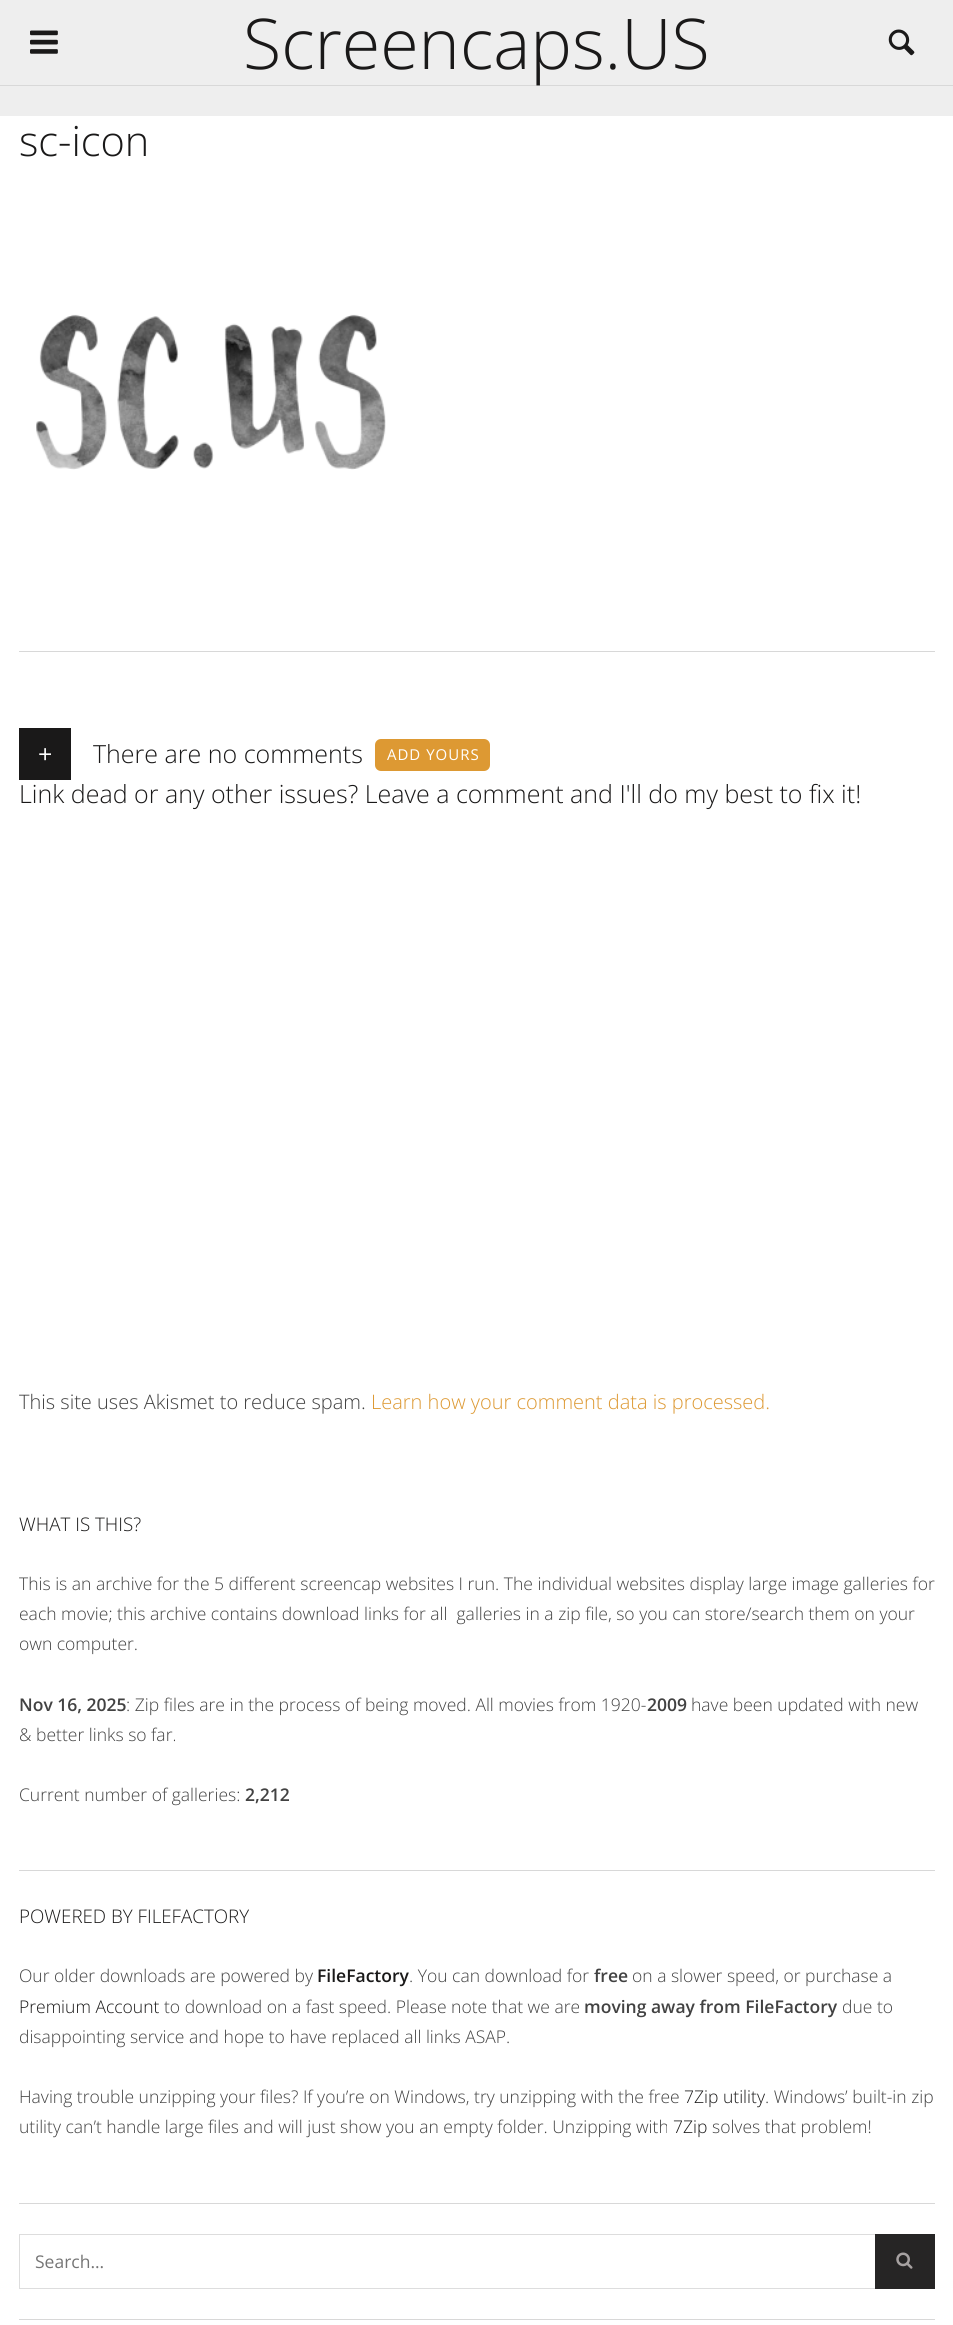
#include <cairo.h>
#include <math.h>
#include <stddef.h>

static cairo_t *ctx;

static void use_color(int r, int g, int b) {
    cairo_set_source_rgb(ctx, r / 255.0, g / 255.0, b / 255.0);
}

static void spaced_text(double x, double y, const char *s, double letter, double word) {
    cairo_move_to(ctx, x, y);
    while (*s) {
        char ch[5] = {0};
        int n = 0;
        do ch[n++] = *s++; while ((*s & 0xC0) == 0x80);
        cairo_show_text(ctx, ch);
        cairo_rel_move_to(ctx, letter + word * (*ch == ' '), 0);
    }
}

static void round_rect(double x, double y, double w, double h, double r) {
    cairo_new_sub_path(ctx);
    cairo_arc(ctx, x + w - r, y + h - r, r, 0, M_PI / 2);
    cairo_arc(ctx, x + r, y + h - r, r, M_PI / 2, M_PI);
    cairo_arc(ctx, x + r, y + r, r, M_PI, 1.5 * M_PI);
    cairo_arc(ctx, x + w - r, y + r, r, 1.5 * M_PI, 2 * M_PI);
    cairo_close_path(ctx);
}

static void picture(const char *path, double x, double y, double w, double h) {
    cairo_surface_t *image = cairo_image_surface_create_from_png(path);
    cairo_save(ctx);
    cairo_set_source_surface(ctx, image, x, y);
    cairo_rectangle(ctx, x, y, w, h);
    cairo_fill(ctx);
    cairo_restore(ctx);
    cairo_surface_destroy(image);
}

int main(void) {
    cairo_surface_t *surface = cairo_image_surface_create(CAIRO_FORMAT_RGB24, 953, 2325);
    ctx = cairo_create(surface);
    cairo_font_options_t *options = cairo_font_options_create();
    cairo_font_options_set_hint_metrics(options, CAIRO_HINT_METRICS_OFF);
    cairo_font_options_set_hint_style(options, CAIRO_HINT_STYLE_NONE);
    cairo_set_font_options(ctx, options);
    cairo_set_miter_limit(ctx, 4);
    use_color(238, 238, 238);
    cairo_paint(ctx);
    use_color(216, 216, 216);
    cairo_rectangle(ctx, 0, 85, 953, 1);
    cairo_fill(ctx);
    picture("img1.png", 30, 30, 28, 24);
    cairo_select_font_face(ctx, "Open Sans Light", CAIRO_FONT_SLANT_NORMAL, CAIRO_FONT_WEIGHT_NORMAL);
    cairo_set_font_size(ctx, 70);
    use_color(26, 25, 25);
    cairo_move_to(ctx, 243, 69);
    cairo_show_text(ctx, "Screencaps.US");
    picture("img2.png", 888, 29, 27, 27);
    use_color(255, 255, 255);
    cairo_rectangle(ctx, 0, 116, 953, 2209);
    cairo_fill(ctx);
    cairo_set_font_size(ctx, 41.5);
    use_color(26, 25, 25);
    cairo_move_to(ctx, 19, 156);
    cairo_show_text(ctx, "sc-icon");
    picture("img3.png", 36, 314, 350, 156);
    use_color(216, 216, 216);
    cairo_rectangle(ctx, 19, 651, 916, 1);
    cairo_fill(ctx);
    use_color(26, 25, 25);
    cairo_rectangle(ctx, 19, 728, 52, 52);
    cairo_fill(ctx);
    cairo_select_font_face(ctx, "Open Sans", CAIRO_FONT_SLANT_NORMAL, CAIRO_FONT_WEIGHT_NORMAL);
    cairo_set_font_size(ctx, 25);
    use_color(255, 255, 255);
    cairo_move_to(ctx, 38, 763);
    cairo_show_text(ctx, "+");
    cairo_select_font_face(ctx, "Open Sans Light", CAIRO_FONT_SLANT_NORMAL, CAIRO_FONT_WEIGHT_NORMAL);
    use_color(26, 25, 25);
    cairo_move_to(ctx, 93, 763);
    cairo_show_text(ctx, "There are no comments");
    use_color(221, 153, 51);
    round_rect(375, 739, 115, 32, 6);
    cairo_fill(ctx);
    cairo_select_font_face(ctx, "Open Sans", CAIRO_FONT_SLANT_NORMAL, CAIRO_FONT_WEIGHT_NORMAL);
    cairo_set_font_size(ctx, 15);
    use_color(255, 255, 255);
    spaced_text(387, 760, "ADD YOURS", 1, 0);
    cairo_select_font_face(ctx, "Open Sans Light", CAIRO_FONT_SLANT_NORMAL, CAIRO_FONT_WEIGHT_NORMAL);
    cairo_set_font_size(ctx, 25);
    use_color(26, 25, 25);
    cairo_move_to(ctx, 19, 803);
    cairo_show_text(ctx, "Link dead or any other issues? Leave a comment and I'll do my best to fix it!");
    cairo_set_font_size(ctx, 20);
    use_color(66, 66, 66);
    cairo_move_to(ctx, 19, 1409);
    cairo_show_text(ctx, "This site uses Akismet to reduce spam.");
    use_color(221, 153, 51);
    cairo_move_to(ctx, 371, 1409);
    cairo_show_text(ctx, "Learn how your comment data is processed.");
    use_color(216, 216, 216);
    cairo_rectangle(ctx, 19, 1870, 916, 1);
    cairo_fill(ctx);
    cairo_set_font_size(ctx, 18.75);
    use_color(26, 25, 25);
    cairo_move_to(ctx, 19, 1531);
    cairo_show_text(ctx, "WHAT IS THIS?");
    cairo_set_font_size(ctx, 17.5);
    use_color(66, 66, 66);
    cairo_move_to(ctx, 19, 1590);
    cairo_show_text(ctx, "This is an archive for the 5 different screencap websites I run. The individual websites display large image galleries for");
    cairo_move_to(ctx, 19, 1620);
    cairo_show_text(ctx, "each movie; this archive contains download links for all  galleries in a zip file, so you can store/search them on your");
    cairo_move_to(ctx, 19, 1650);
    cairo_show_text(ctx, "own computer.");
    cairo_select_font_face(ctx, "Open Sans SemiBold", CAIRO_FONT_SLANT_NORMAL, CAIRO_FONT_WEIGHT_NORMAL);
    cairo_move_to(ctx, 19, 1711);
    cairo_show_text(ctx, "Nov 16, 2025");
    cairo_select_font_face(ctx, "Open Sans Light", CAIRO_FONT_SLANT_NORMAL, CAIRO_FONT_WEIGHT_NORMAL);
    cairo_move_to(ctx, 126, 1711);
    cairo_show_text(ctx, ": Zip files are in the process of being moved. All movies from 1920-");
    cairo_select_font_face(ctx, "Open Sans SemiBold", CAIRO_FONT_SLANT_NORMAL, CAIRO_FONT_WEIGHT_NORMAL);
    cairo_move_to(ctx, 647, 1711);
    cairo_show_text(ctx, "2009");
    cairo_select_font_face(ctx, "Open Sans Light", CAIRO_FONT_SLANT_NORMAL, CAIRO_FONT_WEIGHT_NORMAL);
    cairo_move_to(ctx, 691, 1711);
    cairo_show_text(ctx, "have been updated with new");
    cairo_move_to(ctx, 19, 1741);
    cairo_show_text(ctx, "& better links so far.");
    cairo_move_to(ctx, 19, 1801);
    cairo_show_text(ctx, "Current number of galleries:");
    cairo_select_font_face(ctx, "Open Sans SemiBold", CAIRO_FONT_SLANT_NORMAL, CAIRO_FONT_WEIGHT_NORMAL);
    cairo_move_to(ctx, 245, 1801);
    cairo_show_text(ctx, "2,212");
    use_color(216, 216, 216);
    cairo_rectangle(ctx, 19, 2203, 916, 1);
    cairo_fill(ctx);
    cairo_select_font_face(ctx, "Open Sans Light", CAIRO_FONT_SLANT_NORMAL, CAIRO_FONT_WEIGHT_NORMAL);
    cairo_set_font_size(ctx, 18.75);
    use_color(26, 25, 25);
    cairo_move_to(ctx, 19, 1923);
    cairo_show_text(ctx, "POWERED BY FILEFACTORY");
    cairo_set_font_size(ctx, 17.5);
    use_color(66, 66, 66);
    cairo_move_to(ctx, 19, 1982);
    cairo_show_text(ctx, "Our older downloads are powered by");
    cairo_select_font_face(ctx, "Open Sans SemiBold", CAIRO_FONT_SLANT_NORMAL, CAIRO_FONT_WEIGHT_NORMAL);
    use_color(26, 25, 25);
    cairo_move_to(ctx, 317, 1982);
    cairo_show_text(ctx, "FileFactory");
    cairo_select_font_face(ctx, "Open Sans Light", CAIRO_FONT_SLANT_NORMAL, CAIRO_FONT_WEIGHT_NORMAL);
    use_color(66, 66, 66);
    cairo_move_to(ctx, 409, 1982);
    cairo_show_text(ctx, ". You can download for");
    cairo_select_font_face(ctx, "Open Sans SemiBold", CAIRO_FONT_SLANT_NORMAL, CAIRO_FONT_WEIGHT_NORMAL);
    cairo_move_to(ctx, 594, 1982);
    cairo_show_text(ctx, "free");
    cairo_select_font_face(ctx, "Open Sans Light", CAIRO_FONT_SLANT_NORMAL, CAIRO_FONT_WEIGHT_NORMAL);
    cairo_move_to(ctx, 632, 1982);
    cairo_show_text(ctx, "on a slower speed, or purchase a");
    use_color(26, 25, 25);
    cairo_move_to(ctx, 19, 2013);
    cairo_show_text(ctx, "Premium Account");
    use_color(66, 66, 66);
    cairo_move_to(ctx, 164, 2013);
    cairo_show_text(ctx, "to download on a fast speed. Please note that we are");
    cairo_select_font_face(ctx, "Open Sans SemiBold", CAIRO_FONT_SLANT_NORMAL, CAIRO_FONT_WEIGHT_NORMAL);
    cairo_move_to(ctx, 584, 2013);
    cairo_show_text(ctx, "moving away from FileFactory");
    cairo_select_font_face(ctx, "Open Sans Light", CAIRO_FONT_SLANT_NORMAL, CAIRO_FONT_WEIGHT_NORMAL);
    cairo_move_to(ctx, 842, 2013);
    cairo_show_text(ctx, "due to");
    cairo_move_to(ctx, 19, 2043);
    cairo_show_text(ctx, "disappointing service and hope to have replaced all links ASAP.");
    cairo_move_to(ctx, 19, 2103);
    cairo_show_text(ctx, "Having trouble unzipping your files? If you’re on Windows, try unzipping with the free");
    use_color(26, 25, 25);
    cairo_move_to(ctx, 684, 2103);
    cairo_show_text(ctx, "7Zip utility");
    use_color(66, 66, 66);
    cairo_move_to(ctx, 765, 2103);
    cairo_show_text(ctx, ". Windows’ built-in zip");
    cairo_move_to(ctx, 19, 2133);
    cairo_show_text(ctx, "utility can’t handle large files and will just show you an empty folder. Unzipping with");
    use_color(26, 25, 25);
    cairo_move_to(ctx, 673, 2133);
    cairo_show_text(ctx, "7Zip");
    use_color(66, 66, 66);
    cairo_move_to(ctx, 712, 2133);
    cairo_show_text(ctx, "solves that problem!");
    use_color(216, 216, 216);
    cairo_rectangle(ctx, 19, 2319, 916, 1);
    cairo_fill(ctx);
    cairo_rectangle(ctx, 19.5, 2234.5, 915, 54);
    use_color(221, 221, 221);
    cairo_set_line_width(ctx, 1);
    cairo_stroke(ctx);
    cairo_select_font_face(ctx, "Open Sans", CAIRO_FONT_SLANT_NORMAL, CAIRO_FONT_WEIGHT_NORMAL);
    use_color(117, 117, 117);
    cairo_move_to(ctx, 35, 2268);
    cairo_show_text(ctx, "Search...");
    use_color(38, 37, 37);
    cairo_rectangle(ctx, 875, 2234, 60, 55);
    cairo_fill(ctx);
    picture("img4.png", 896, 2252, 17, 17);
    cairo_surface_write_to_png(surface, "result.png");
    cairo_font_options_destroy(options);
    cairo_destroy(ctx);
    cairo_surface_destroy(surface);
    return 0;
}
